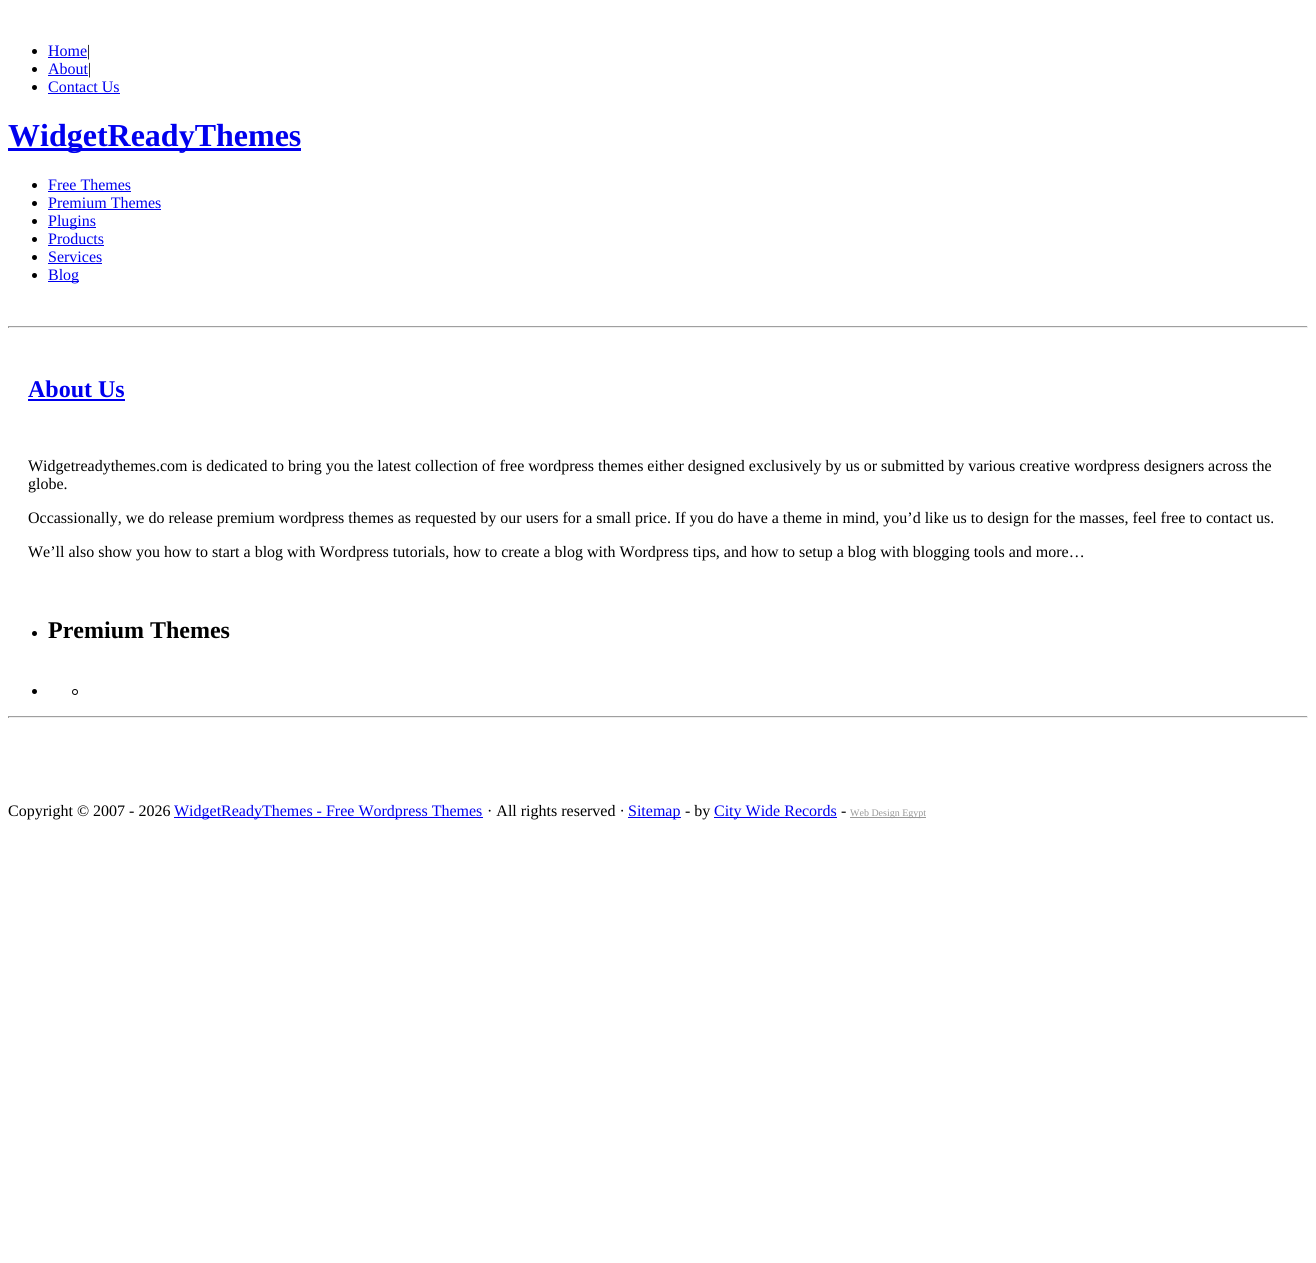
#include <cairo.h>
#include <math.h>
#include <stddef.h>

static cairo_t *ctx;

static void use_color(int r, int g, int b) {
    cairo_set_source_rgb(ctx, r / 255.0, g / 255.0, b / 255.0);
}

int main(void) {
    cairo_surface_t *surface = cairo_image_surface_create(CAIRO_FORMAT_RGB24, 1316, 1263);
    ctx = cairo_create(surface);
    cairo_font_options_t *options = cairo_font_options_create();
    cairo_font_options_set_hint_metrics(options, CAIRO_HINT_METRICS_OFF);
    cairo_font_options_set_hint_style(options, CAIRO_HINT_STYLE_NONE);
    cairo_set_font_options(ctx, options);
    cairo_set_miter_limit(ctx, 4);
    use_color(255, 255, 255);
    cairo_paint(ctx);
    use_color(0, 0, 0);
    cairo_arc(ctx, 34.5, 51.5, 2.5, 0, 2 * M_PI);
    cairo_fill(ctx);
    cairo_select_font_face(ctx, "Liberation Serif", CAIRO_FONT_SLANT_NORMAL, CAIRO_FONT_WEIGHT_NORMAL);
    cairo_set_font_size(ctx, 16);
    use_color(0, 0, 238);
    cairo_move_to(ctx, 48, 56);
    cairo_show_text(ctx, "Home");
    cairo_rectangle(ctx, 48, 57, 39, 1);
    cairo_fill(ctx);
    use_color(0, 0, 0);
    cairo_move_to(ctx, 87, 56);
    cairo_show_text(ctx, "|");
    cairo_new_path(ctx);
    cairo_arc(ctx, 34.5, 69.5, 2.5, 0, 2 * M_PI);
    cairo_fill(ctx);
    use_color(0, 0, 238);
    cairo_move_to(ctx, 48, 74);
    cairo_show_text(ctx, "About");
    cairo_rectangle(ctx, 48, 75, 40, 1);
    cairo_fill(ctx);
    use_color(0, 0, 0);
    cairo_move_to(ctx, 88, 74);
    cairo_show_text(ctx, "|");
    cairo_new_path(ctx);
    cairo_arc(ctx, 34.5, 87.5, 2.5, 0, 2 * M_PI);
    cairo_fill(ctx);
    use_color(0, 0, 238);
    cairo_move_to(ctx, 48, 92);
    cairo_show_text(ctx, "Contact Us");
    cairo_rectangle(ctx, 48, 93, 72, 1);
    cairo_fill(ctx);
    cairo_rectangle(ctx, 8, 148, 293, 3);
    cairo_fill(ctx);
    cairo_select_font_face(ctx, "Liberation Serif", CAIRO_FONT_SLANT_NORMAL, CAIRO_FONT_WEIGHT_BOLD);
    cairo_set_font_size(ctx, 32);
    cairo_move_to(ctx, 8, 146);
    cairo_show_text(ctx, "WidgetReadyThemes");
    use_color(0, 0, 0);
    cairo_new_path(ctx);
    cairo_arc(ctx, 34.5, 185.5, 2.5, 0, 2 * M_PI);
    cairo_fill(ctx);
    cairo_select_font_face(ctx, "Liberation Serif", CAIRO_FONT_SLANT_NORMAL, CAIRO_FONT_WEIGHT_NORMAL);
    cairo_set_font_size(ctx, 16);
    use_color(0, 0, 238);
    cairo_move_to(ctx, 48, 190);
    cairo_show_text(ctx, "Free Themes");
    cairo_rectangle(ctx, 48, 191, 83, 1);
    cairo_fill(ctx);
    use_color(0, 0, 0);
    cairo_arc(ctx, 34.5, 203.5, 2.5, 0, 2 * M_PI);
    cairo_fill(ctx);
    use_color(0, 0, 238);
    cairo_move_to(ctx, 48, 208);
    cairo_show_text(ctx, "Premium Themes");
    cairo_rectangle(ctx, 48, 209, 113, 1);
    cairo_fill(ctx);
    use_color(0, 0, 0);
    cairo_arc(ctx, 34.5, 221.5, 2.5, 0, 2 * M_PI);
    cairo_fill(ctx);
    use_color(0, 0, 238);
    cairo_rectangle(ctx, 48, 227, 48, 1);
    cairo_fill(ctx);
    cairo_move_to(ctx, 48, 226);
    cairo_show_text(ctx, "Plugins");
    use_color(0, 0, 0);
    cairo_new_path(ctx);
    cairo_arc(ctx, 34.5, 239.5, 2.5, 0, 2 * M_PI);
    cairo_fill(ctx);
    use_color(0, 0, 238);
    cairo_move_to(ctx, 48, 244);
    cairo_show_text(ctx, "Products");
    cairo_rectangle(ctx, 48, 245, 56, 1);
    cairo_fill(ctx);
    use_color(0, 0, 0);
    cairo_arc(ctx, 34.5, 257.5, 2.5, 0, 2 * M_PI);
    cairo_fill(ctx);
    use_color(0, 0, 238);
    cairo_move_to(ctx, 48, 262);
    cairo_show_text(ctx, "Services");
    cairo_rectangle(ctx, 48, 263, 54, 1);
    cairo_fill(ctx);
    use_color(0, 0, 0);
    cairo_arc(ctx, 34.5, 275.5, 2.5, 0, 2 * M_PI);
    cairo_fill(ctx);
    use_color(0, 0, 238);
    cairo_rectangle(ctx, 48, 281, 31, 1);
    cairo_fill(ctx);
    cairo_move_to(ctx, 48, 280);
    cairo_show_text(ctx, "Blog");
    use_color(159, 159, 159);
    cairo_rectangle(ctx, 8, 326, 1300, 1);
    cairo_fill(ctx);
    use_color(238, 238, 238);
    cairo_rectangle(ctx, 1307, 326, 1, 2);
    cairo_fill(ctx);
    cairo_rectangle(ctx, 8, 327, 1300, 1);
    cairo_fill(ctx);
    use_color(159, 159, 159);
    cairo_rectangle(ctx, 8, 326, 1, 2);
    cairo_fill(ctx);
    cairo_select_font_face(ctx, "Liberation Serif", CAIRO_FONT_SLANT_NORMAL, CAIRO_FONT_WEIGHT_BOLD);
    cairo_set_font_size(ctx, 24);
    use_color(0, 0, 238);
    cairo_move_to(ctx, 28, 397);
    cairo_show_text(ctx, "About Us");
    cairo_rectangle(ctx, 28, 399, 97, 2);
    cairo_fill(ctx);
    cairo_select_font_face(ctx, "Liberation Serif", CAIRO_FONT_SLANT_NORMAL, CAIRO_FONT_WEIGHT_NORMAL);
    cairo_set_font_size(ctx, 16);
    use_color(0, 0, 0);
    cairo_move_to(ctx, 28, 471);
    cairo_show_text(ctx, "Widgetreadythemes.com is dedicated to bring you the latest collection of free wordpress themes either designed exclusively by us or submitted by various creative wordpress designers across the");
    cairo_move_to(ctx, 28, 489);
    cairo_show_text(ctx, "globe.");
    cairo_move_to(ctx, 28, 523);
    cairo_show_text(ctx, "Occassionally, we do release premium wordpress themes as requested by our users for a small price. If you do have a theme in mind, you’d like us to design for the masses, feel free to contact us.");
    cairo_move_to(ctx, 28, 557);
    cairo_show_text(ctx, "We’ll also show you how to start a blog with Wordpress tutorials, how to create a blog with Wordpress tips, and how to setup a blog with blogging tools and more…");
    cairo_new_path(ctx);
    cairo_arc(ctx, 34.5, 633.5, 2.5, 0, 2 * M_PI);
    cairo_fill(ctx);
    cairo_select_font_face(ctx, "Liberation Serif", CAIRO_FONT_SLANT_NORMAL, CAIRO_FONT_WEIGHT_BOLD);
    cairo_set_font_size(ctx, 24);
    cairo_move_to(ctx, 48, 638);
    cairo_show_text(ctx, "Premium Themes");
    cairo_new_path(ctx);
    cairo_arc(ctx, 34.5, 691.5, 2.5, 0, 2 * M_PI);
    cairo_fill(ctx);
    cairo_arc(ctx, 75, 692, 2.5, 0, 2 * M_PI);
    cairo_set_line_width(ctx, 1);
    cairo_stroke(ctx);
    use_color(159, 159, 159);
    cairo_rectangle(ctx, 8, 716, 1300, 1);
    cairo_fill(ctx);
    use_color(238, 238, 238);
    cairo_rectangle(ctx, 1307, 716, 1, 2);
    cairo_fill(ctx);
    cairo_rectangle(ctx, 8, 717, 1300, 1);
    cairo_fill(ctx);
    use_color(159, 159, 159);
    cairo_rectangle(ctx, 8, 716, 1, 2);
    cairo_fill(ctx);
    cairo_select_font_face(ctx, "Liberation Serif", CAIRO_FONT_SLANT_NORMAL, CAIRO_FONT_WEIGHT_NORMAL);
    cairo_set_font_size(ctx, 16);
    use_color(0, 0, 0);
    cairo_move_to(ctx, 8, 816);
    cairo_show_text(ctx, "Copyright © 2007 - 2026");
    use_color(0, 0, 238);
    cairo_rectangle(ctx, 174, 817, 309, 1);
    cairo_fill(ctx);
    cairo_move_to(ctx, 174, 816);
    cairo_show_text(ctx, "WidgetReadyThemes - Free Wordpress Themes");
    use_color(0, 0, 0);
    cairo_move_to(ctx, 487, 816);
    cairo_show_text(ctx, "· All rights reserved ·");
    use_color(0, 0, 238);
    cairo_rectangle(ctx, 628, 817, 53, 1);
    cairo_fill(ctx);
    cairo_move_to(ctx, 628, 816);
    cairo_show_text(ctx, "Sitemap");
    use_color(0, 0, 0);
    cairo_move_to(ctx, 685, 816);
    cairo_show_text(ctx, "- by");
    use_color(0, 0, 238);
    cairo_rectangle(ctx, 714, 817, 123, 1);
    cairo_fill(ctx);
    cairo_move_to(ctx, 714, 816);
    cairo_show_text(ctx, "City Wide Records");
    use_color(0, 0, 0);
    cairo_move_to(ctx, 841, 816);
    cairo_show_text(ctx, "-");
    use_color(153, 153, 153);
    cairo_rectangle(ctx, 850, 817, 76, 1);
    cairo_fill(ctx);
    cairo_set_font_size(ctx, 10);
    cairo_move_to(ctx, 850, 816);
    cairo_show_text(ctx, "Web Design Egypt");
    cairo_surface_write_to_png(surface, "result.png");
    cairo_font_options_destroy(options);
    cairo_destroy(ctx);
    cairo_surface_destroy(surface);
    return 0;
}
